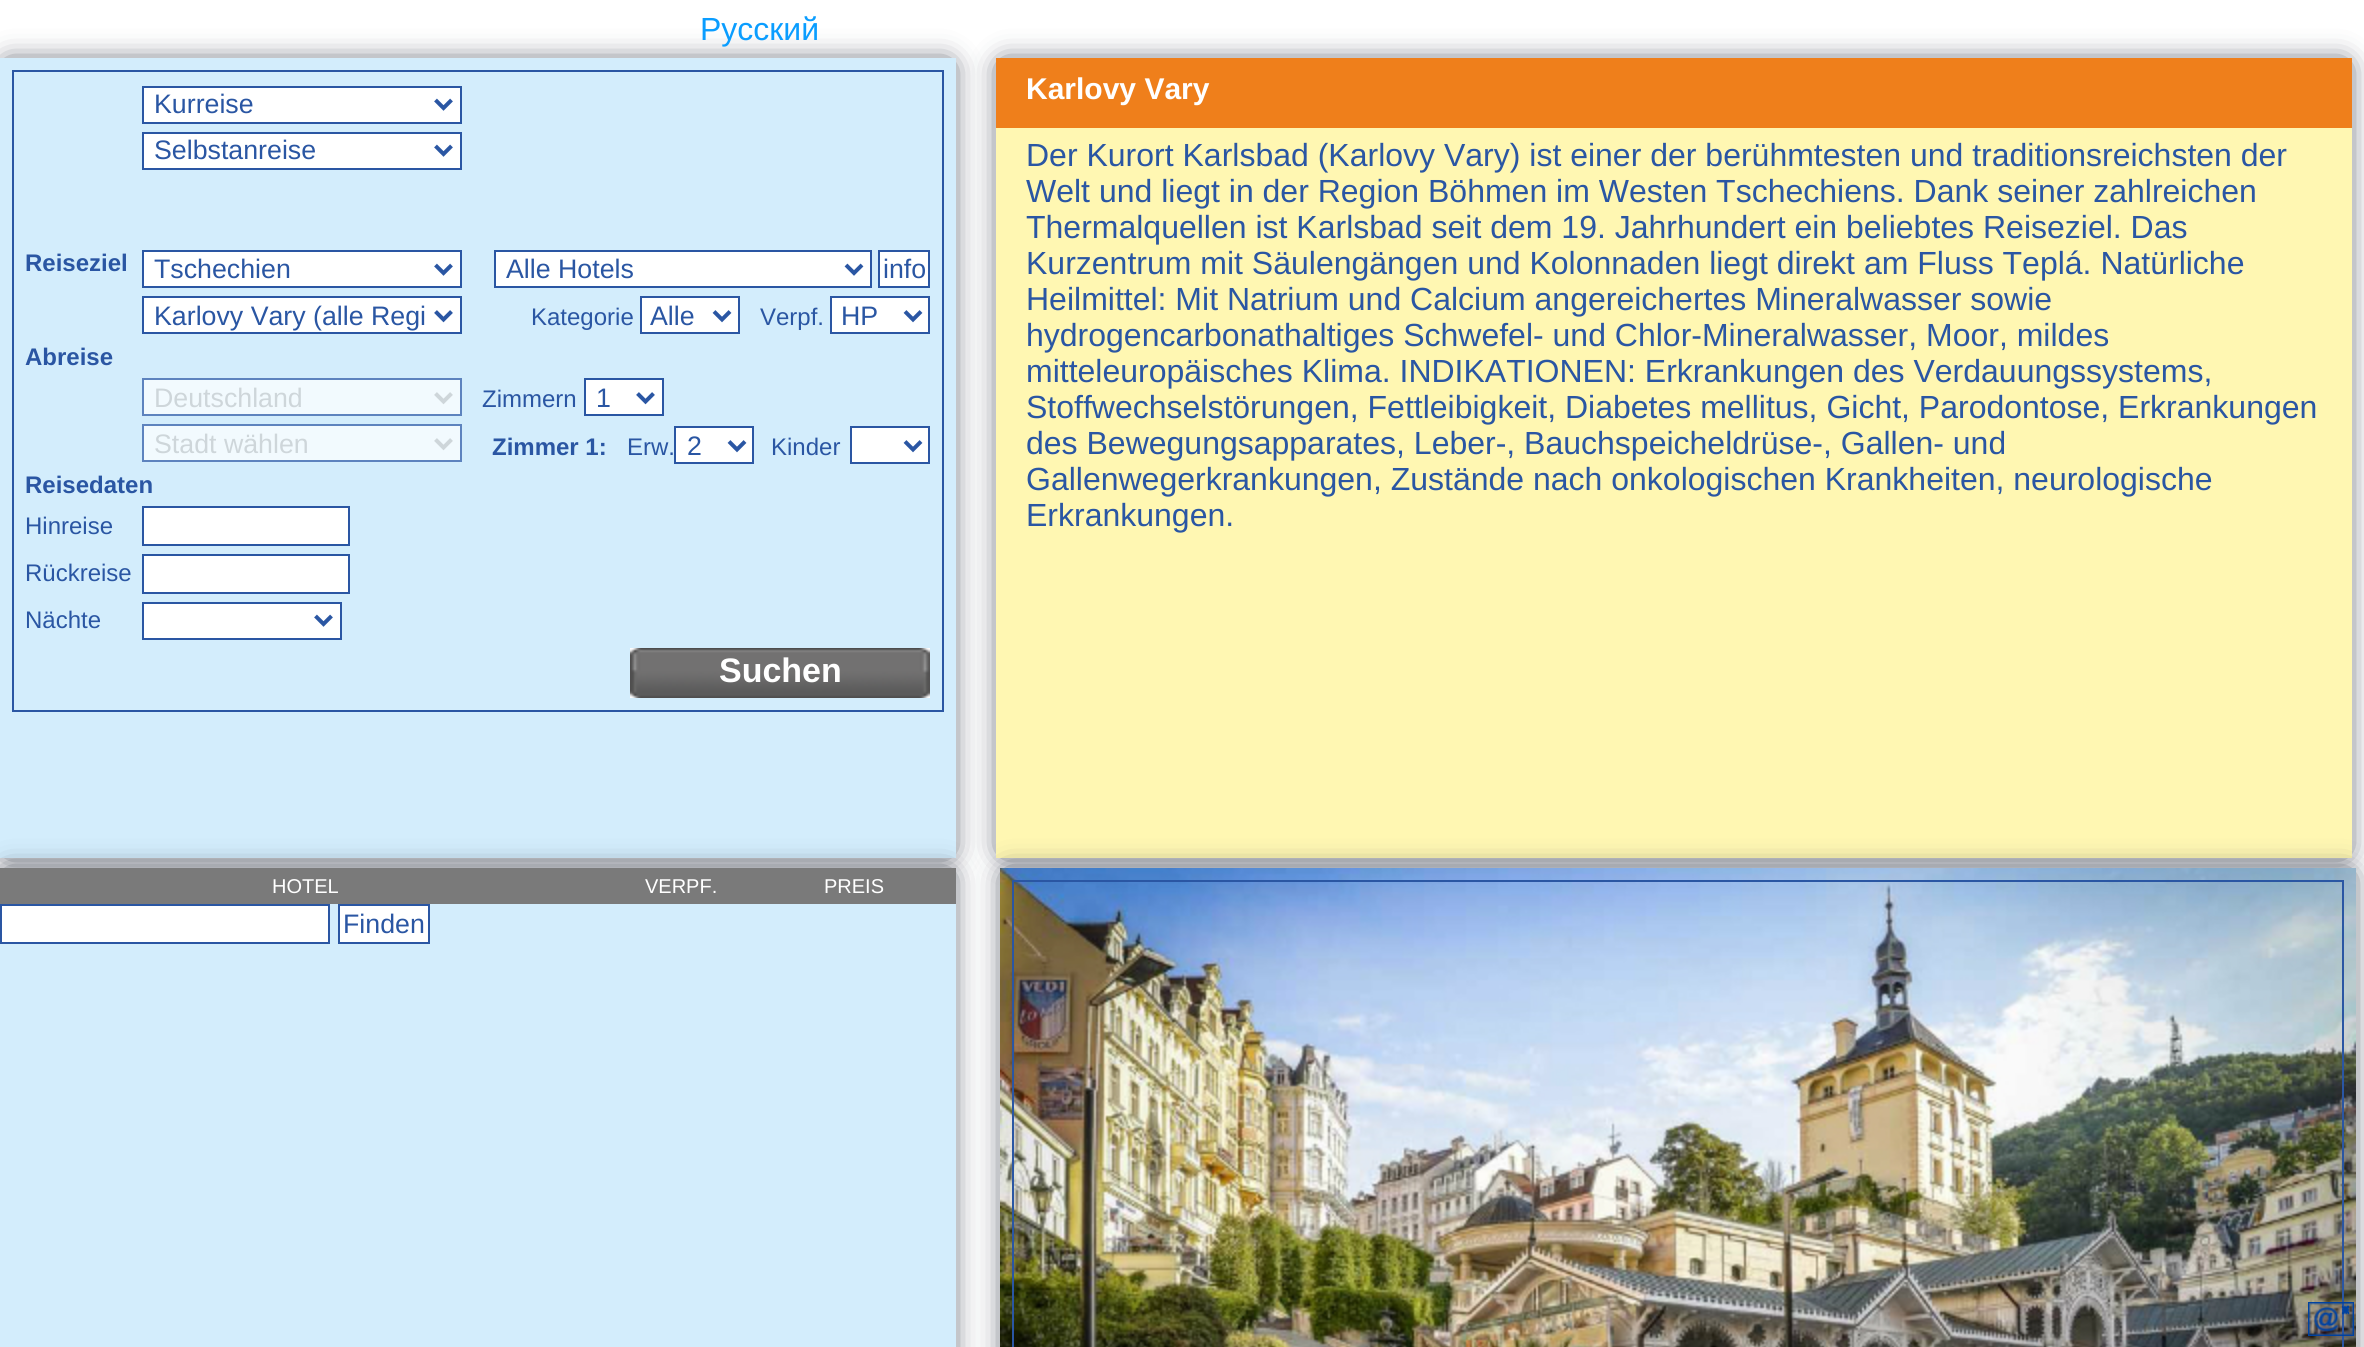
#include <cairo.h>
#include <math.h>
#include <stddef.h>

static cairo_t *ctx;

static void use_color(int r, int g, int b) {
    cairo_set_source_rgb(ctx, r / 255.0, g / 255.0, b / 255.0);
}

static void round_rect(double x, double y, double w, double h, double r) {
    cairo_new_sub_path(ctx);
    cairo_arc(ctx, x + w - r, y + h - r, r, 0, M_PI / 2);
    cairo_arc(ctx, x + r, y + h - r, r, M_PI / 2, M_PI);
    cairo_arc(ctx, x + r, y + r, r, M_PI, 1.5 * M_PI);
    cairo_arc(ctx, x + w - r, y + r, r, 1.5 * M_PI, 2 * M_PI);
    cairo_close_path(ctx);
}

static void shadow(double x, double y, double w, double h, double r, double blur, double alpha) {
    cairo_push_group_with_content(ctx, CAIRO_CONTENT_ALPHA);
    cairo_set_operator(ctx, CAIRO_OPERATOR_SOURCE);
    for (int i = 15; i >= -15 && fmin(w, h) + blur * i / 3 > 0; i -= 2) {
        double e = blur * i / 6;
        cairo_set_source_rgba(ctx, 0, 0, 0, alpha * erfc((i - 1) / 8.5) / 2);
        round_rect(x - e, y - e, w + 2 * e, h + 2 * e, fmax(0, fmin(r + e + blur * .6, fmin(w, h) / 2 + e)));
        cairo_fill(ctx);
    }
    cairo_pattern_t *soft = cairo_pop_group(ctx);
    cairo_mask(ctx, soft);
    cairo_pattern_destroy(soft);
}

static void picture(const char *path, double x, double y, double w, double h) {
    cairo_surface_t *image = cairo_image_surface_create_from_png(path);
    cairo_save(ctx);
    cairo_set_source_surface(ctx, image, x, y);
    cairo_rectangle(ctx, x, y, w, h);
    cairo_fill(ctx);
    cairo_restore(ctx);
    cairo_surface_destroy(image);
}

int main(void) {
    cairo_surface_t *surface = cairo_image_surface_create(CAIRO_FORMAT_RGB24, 2364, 1347);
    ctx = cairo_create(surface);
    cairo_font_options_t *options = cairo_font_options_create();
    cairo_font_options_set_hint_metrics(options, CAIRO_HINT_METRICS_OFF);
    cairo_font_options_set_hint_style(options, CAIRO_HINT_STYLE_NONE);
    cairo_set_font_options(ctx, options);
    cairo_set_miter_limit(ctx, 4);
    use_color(255, 255, 255);
    cairo_paint(ctx);
    use_color(21, 27, 43);
    shadow(8, 66, 940, 784, 0, 15, 1);
    cairo_select_font_face(ctx, "Liberation Sans", CAIRO_FONT_SLANT_NORMAL, CAIRO_FONT_WEIGHT_NORMAL);
    cairo_set_font_size(ctx, 32);
    use_color(10, 157, 255);
    cairo_move_to(ctx, 700, 40);
    cairo_show_text(ctx, "Русский");
    use_color(211, 237, 252);
    cairo_rectangle(ctx, 0, 58, 956, 800);
    cairo_fill(ctx);
    cairo_rectangle(ctx, 13, 71, 930, 640);
    use_color(42, 86, 163);
    cairo_stroke(ctx);
    use_color(255, 255, 255);
    cairo_rectangle(ctx, 143, 87, 318, 36);
    cairo_fill_preserve(ctx);
    use_color(42, 86, 163);
    cairo_stroke(ctx);
    cairo_new_path(ctx);
    cairo_move_to(ctx, 435.5, 100);
    cairo_line_to(ctx, 443.5, 108);
    cairo_line_to(ctx, 451.5, 100);
    cairo_set_line_width(ctx, 4);
    cairo_stroke(ctx);
    cairo_set_font_size(ctx, 26.75);
    cairo_move_to(ctx, 154, 113);
    cairo_show_text(ctx, "Kurreise");
    use_color(255, 255, 255);
    cairo_rectangle(ctx, 143, 133, 318, 36);
    cairo_fill_preserve(ctx);
    use_color(42, 86, 163);
    cairo_set_line_width(ctx, 2);
    cairo_stroke(ctx);
    cairo_new_path(ctx);
    cairo_move_to(ctx, 435.5, 146);
    cairo_line_to(ctx, 443.5, 154);
    cairo_line_to(ctx, 451.5, 146);
    cairo_set_line_width(ctx, 4);
    cairo_stroke(ctx);
    cairo_move_to(ctx, 154, 159);
    cairo_show_text(ctx, "Selbstanreise");
    cairo_select_font_face(ctx, "Liberation Sans", CAIRO_FONT_SLANT_NORMAL, CAIRO_FONT_WEIGHT_BOLD);
    cairo_set_font_size(ctx, 24);
    cairo_move_to(ctx, 25, 271);
    cairo_show_text(ctx, "Reiseziel");
    use_color(255, 255, 255);
    cairo_rectangle(ctx, 143, 251, 318, 36);
    cairo_fill_preserve(ctx);
    use_color(42, 86, 163);
    cairo_set_line_width(ctx, 2);
    cairo_stroke(ctx);
    cairo_new_path(ctx);
    cairo_move_to(ctx, 435.5, 265);
    cairo_line_to(ctx, 443.5, 273);
    cairo_line_to(ctx, 451.5, 265);
    cairo_set_line_width(ctx, 4);
    cairo_stroke(ctx);
    cairo_select_font_face(ctx, "Liberation Sans", CAIRO_FONT_SLANT_NORMAL, CAIRO_FONT_WEIGHT_NORMAL);
    cairo_set_font_size(ctx, 26.75);
    cairo_move_to(ctx, 154, 278);
    cairo_show_text(ctx, "Tschechien");
    use_color(255, 255, 255);
    cairo_rectangle(ctx, 495, 251, 376, 36);
    cairo_fill_preserve(ctx);
    use_color(42, 86, 163);
    cairo_set_line_width(ctx, 2);
    cairo_stroke(ctx);
    cairo_new_path(ctx);
    cairo_move_to(ctx, 846, 265);
    cairo_line_to(ctx, 854, 273);
    cairo_line_to(ctx, 862, 265);
    cairo_set_line_width(ctx, 4);
    cairo_stroke(ctx);
    cairo_move_to(ctx, 506, 278);
    cairo_show_text(ctx, "Alle Hotels");
    use_color(255, 255, 255);
    cairo_rectangle(ctx, 879, 251, 50, 36);
    cairo_fill_preserve(ctx);
    use_color(42, 86, 163);
    cairo_set_line_width(ctx, 2);
    cairo_stroke(ctx);
    cairo_move_to(ctx, 883, 278);
    cairo_show_text(ctx, "info");
    use_color(255, 255, 255);
    cairo_rectangle(ctx, 143, 297, 318, 36);
    cairo_fill_preserve(ctx);
    use_color(42, 86, 163);
    cairo_stroke(ctx);
    cairo_new_path(ctx);
    cairo_move_to(ctx, 435.5, 311.5);
    cairo_line_to(ctx, 443.5, 319.5);
    cairo_line_to(ctx, 451.5, 311.5);
    cairo_set_line_width(ctx, 4);
    cairo_stroke(ctx);
    cairo_move_to(ctx, 154, 325);
    cairo_show_text(ctx, "Karlovy Vary (alle Regi");
    cairo_set_font_size(ctx, 24);
    cairo_move_to(ctx, 531, 325);
    cairo_show_text(ctx, "Kategorie");
    use_color(255, 255, 255);
    cairo_rectangle(ctx, 641, 297, 98, 36);
    cairo_fill_preserve(ctx);
    use_color(42, 86, 163);
    cairo_set_line_width(ctx, 2);
    cairo_stroke(ctx);
    cairo_new_path(ctx);
    cairo_move_to(ctx, 714, 311.5);
    cairo_line_to(ctx, 722, 319.5);
    cairo_line_to(ctx, 730, 311.5);
    cairo_set_line_width(ctx, 4);
    cairo_stroke(ctx);
    cairo_set_font_size(ctx, 26.75);
    cairo_move_to(ctx, 650, 325);
    cairo_show_text(ctx, "Alle");
    cairo_set_font_size(ctx, 24);
    cairo_move_to(ctx, 760, 325);
    cairo_show_text(ctx, "Verpf.");
    use_color(255, 255, 255);
    cairo_rectangle(ctx, 831, 297, 98, 36);
    cairo_fill_preserve(ctx);
    use_color(42, 86, 163);
    cairo_set_line_width(ctx, 2);
    cairo_stroke(ctx);
    cairo_new_path(ctx);
    cairo_move_to(ctx, 905, 311.5);
    cairo_line_to(ctx, 913, 319.5);
    cairo_line_to(ctx, 921, 311.5);
    cairo_set_line_width(ctx, 4);
    cairo_stroke(ctx);
    cairo_set_font_size(ctx, 26.75);
    cairo_move_to(ctx, 841, 325);
    cairo_show_text(ctx, "HP");
    cairo_select_font_face(ctx, "Liberation Sans", CAIRO_FONT_SLANT_NORMAL, CAIRO_FONT_WEIGHT_BOLD);
    cairo_set_font_size(ctx, 24);
    cairo_move_to(ctx, 25, 365);
    cairo_show_text(ctx, "Abreise");
    use_color(242, 250, 254);
    cairo_rectangle(ctx, 143, 379, 318, 36);
    cairo_fill_preserve(ctx);
    use_color(93, 131, 190);
    cairo_set_line_width(ctx, 2);
    cairo_stroke(ctx);
    cairo_new_path(ctx);
    cairo_move_to(ctx, 435.5, 393.5);
    cairo_line_to(ctx, 443.5, 401.5);
    cairo_line_to(ctx, 451.5, 393.5);
    use_color(206, 214, 218);
    cairo_set_line_width(ctx, 4);
    cairo_stroke(ctx);
    cairo_select_font_face(ctx, "Liberation Sans", CAIRO_FONT_SLANT_NORMAL, CAIRO_FONT_WEIGHT_NORMAL);
    cairo_set_font_size(ctx, 26.75);
    cairo_move_to(ctx, 154, 407);
    cairo_show_text(ctx, "Deutschland");
    cairo_set_font_size(ctx, 24);
    use_color(42, 86, 163);
    cairo_move_to(ctx, 482, 407);
    cairo_show_text(ctx, "Zimmern");
    use_color(255, 255, 255);
    cairo_rectangle(ctx, 585, 379, 78, 36);
    cairo_fill_preserve(ctx);
    use_color(42, 86, 163);
    cairo_set_line_width(ctx, 2);
    cairo_stroke(ctx);
    cairo_new_path(ctx);
    cairo_move_to(ctx, 637.5, 393.5);
    cairo_line_to(ctx, 645.5, 401.5);
    cairo_line_to(ctx, 653.5, 393.5);
    cairo_set_line_width(ctx, 4);
    cairo_stroke(ctx);
    cairo_set_font_size(ctx, 26.75);
    cairo_move_to(ctx, 596, 407);
    cairo_show_text(ctx, "1");
    cairo_select_font_face(ctx, "Liberation Sans", CAIRO_FONT_SLANT_NORMAL, CAIRO_FONT_WEIGHT_BOLD);
    cairo_set_font_size(ctx, 24);
    cairo_move_to(ctx, 492, 455);
    cairo_show_text(ctx, "Zimmer 1:");
    cairo_select_font_face(ctx, "Liberation Sans", CAIRO_FONT_SLANT_NORMAL, CAIRO_FONT_WEIGHT_NORMAL);
    cairo_move_to(ctx, 627, 455);
    cairo_show_text(ctx, "Erw.");
    use_color(255, 255, 255);
    cairo_rectangle(ctx, 675, 427, 78, 36);
    cairo_fill_preserve(ctx);
    use_color(42, 86, 163);
    cairo_set_line_width(ctx, 2);
    cairo_stroke(ctx);
    cairo_new_path(ctx);
    cairo_move_to(ctx, 729, 441.5);
    cairo_line_to(ctx, 737, 449.5);
    cairo_line_to(ctx, 745, 441.5);
    cairo_set_line_width(ctx, 4);
    cairo_stroke(ctx);
    cairo_set_font_size(ctx, 26.75);
    cairo_move_to(ctx, 687, 455);
    cairo_show_text(ctx, "2");
    cairo_set_font_size(ctx, 24);
    cairo_move_to(ctx, 771, 455);
    cairo_show_text(ctx, "Kinder");
    use_color(255, 255, 255);
    cairo_rectangle(ctx, 851, 427, 78, 36);
    cairo_fill_preserve(ctx);
    use_color(42, 86, 163);
    cairo_set_line_width(ctx, 2);
    cairo_stroke(ctx);
    cairo_new_path(ctx);
    cairo_move_to(ctx, 905, 441.5);
    cairo_line_to(ctx, 913, 449.5);
    cairo_line_to(ctx, 921, 441.5);
    cairo_set_line_width(ctx, 4);
    cairo_stroke(ctx);
    use_color(242, 250, 254);
    cairo_rectangle(ctx, 143, 425, 318, 36);
    cairo_fill_preserve(ctx);
    use_color(93, 131, 190);
    cairo_set_line_width(ctx, 2);
    cairo_stroke(ctx);
    cairo_new_path(ctx);
    cairo_move_to(ctx, 435.5, 439.5);
    cairo_line_to(ctx, 443.5, 447.5);
    cairo_line_to(ctx, 451.5, 439.5);
    use_color(206, 214, 218);
    cairo_set_line_width(ctx, 4);
    cairo_stroke(ctx);
    cairo_set_font_size(ctx, 26.75);
    cairo_move_to(ctx, 154, 453);
    cairo_show_text(ctx, "Stadt wählen");
    cairo_select_font_face(ctx, "Liberation Sans", CAIRO_FONT_SLANT_NORMAL, CAIRO_FONT_WEIGHT_BOLD);
    cairo_set_font_size(ctx, 24);
    use_color(42, 86, 163);
    cairo_move_to(ctx, 25, 493);
    cairo_show_text(ctx, "Reisedaten");
    cairo_select_font_face(ctx, "Liberation Sans", CAIRO_FONT_SLANT_NORMAL, CAIRO_FONT_WEIGHT_NORMAL);
    cairo_move_to(ctx, 25, 534);
    cairo_show_text(ctx, "Hinreise");
    use_color(255, 255, 255);
    cairo_rectangle(ctx, 143, 507, 206, 38);
    cairo_fill_preserve(ctx);
    use_color(42, 86, 163);
    cairo_set_line_width(ctx, 2);
    cairo_stroke(ctx);
    cairo_move_to(ctx, 25, 581);
    cairo_show_text(ctx, "Rückreise");
    use_color(255, 255, 255);
    cairo_rectangle(ctx, 143, 555, 206, 38);
    cairo_fill_preserve(ctx);
    use_color(42, 86, 163);
    cairo_stroke(ctx);
    cairo_move_to(ctx, 25, 628);
    cairo_show_text(ctx, "Nächte");
    use_color(255, 255, 255);
    cairo_rectangle(ctx, 143, 603, 198, 36);
    cairo_fill_preserve(ctx);
    use_color(42, 86, 163);
    cairo_stroke(ctx);
    cairo_new_path(ctx);
    cairo_move_to(ctx, 315.5, 616);
    cairo_line_to(ctx, 323.5, 624);
    cairo_line_to(ctx, 331.5, 616);
    cairo_set_line_width(ctx, 4);
    cairo_stroke(ctx);
    use_color(255, 255, 255);
    cairo_rectangle(ctx, 630, 648, 300, 50);
    cairo_fill(ctx);
    picture("img1.png", 630, 648, 300, 50);
    cairo_select_font_face(ctx, "Liberation Sans", CAIRO_FONT_SLANT_NORMAL, CAIRO_FONT_WEIGHT_BOLD);
    cairo_set_font_size(ctx, 34);
    cairo_move_to(ctx, 719, 682);
    cairo_show_text(ctx, "Suchen");
    use_color(21, 27, 43);
    shadow(1004, 66, 1340, 784, 0, 15, 1);
    use_color(255, 247, 178);
    cairo_rectangle(ctx, 996, 128, 1356, 730);
    cairo_fill(ctx);
    use_color(239, 127, 27);
    cairo_rectangle(ctx, 996, 58, 1356, 70);
    cairo_fill(ctx);
    cairo_set_font_size(ctx, 30);
    use_color(255, 255, 255);
    cairo_move_to(ctx, 1026, 99);
    cairo_show_text(ctx, "Karlovy Vary");
    cairo_select_font_face(ctx, "Liberation Sans", CAIRO_FONT_SLANT_NORMAL, CAIRO_FONT_WEIGHT_NORMAL);
    cairo_set_font_size(ctx, 32);
    use_color(42, 86, 163);
    cairo_move_to(ctx, 1026, 166);
    cairo_show_text(ctx, "Der Kurort Karlsbad (Karlovy Vary) ist einer der berühmtesten und traditionsreichsten der");
    cairo_move_to(ctx, 1026, 202);
    cairo_show_text(ctx, "Welt und liegt in der Region Böhmen im Westen Tschechiens. Dank seiner zahlreichen");
    cairo_move_to(ctx, 1026, 238);
    cairo_show_text(ctx, "Thermalquellen ist Karlsbad seit dem 19. Jahrhundert ein beliebtes Reiseziel. Das");
    cairo_move_to(ctx, 1026, 274);
    cairo_show_text(ctx, "Kurzentrum mit Säulengängen und Kolonnaden liegt direkt am Fluss Teplá. Natürliche");
    cairo_move_to(ctx, 1026, 310);
    cairo_show_text(ctx, "Heilmittel: Mit Natrium und Calcium angereichertes Mineralwasser sowie");
    cairo_move_to(ctx, 1026, 346);
    cairo_show_text(ctx, "hydrogencarbonathaltiges Schwefel- und Chlor-Mineralwasser, Moor, mildes");
    cairo_move_to(ctx, 1026, 382);
    cairo_show_text(ctx, "mitteleuropäisches Klima. INDIKATIONEN: Erkrankungen des Verdauungssystems,");
    cairo_move_to(ctx, 1026, 418);
    cairo_show_text(ctx, "Stoffwechselstörungen, Fettleibigkeit, Diabetes mellitus, Gicht, Parodontose, Erkrankungen");
    cairo_move_to(ctx, 1026, 454);
    cairo_show_text(ctx, "des Bewegungsapparates, Leber-, Bauchspeicheldrüse-, Gallen- und");
    cairo_move_to(ctx, 1026, 490);
    cairo_show_text(ctx, "Gallenwegerkrankungen, Zustände nach onkologischen Krankheiten, neurologische");
    cairo_move_to(ctx, 1026, 526);
    cairo_show_text(ctx, "Erkrankungen.");
    use_color(21, 27, 43);
    shadow(8, 876, 940, 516, 0, 15, 1);
    use_color(211, 237, 252);
    cairo_rectangle(ctx, 0, 904, 956, 443);
    cairo_fill(ctx);
    use_color(122, 122, 122);
    cairo_rectangle(ctx, 0, 868, 956, 36);
    cairo_fill(ctx);
    cairo_set_font_size(ctx, 20);
    use_color(255, 255, 255);
    cairo_move_to(ctx, 272, 893);
    cairo_show_text(ctx, "HOTEL");
    cairo_move_to(ctx, 645, 893);
    cairo_show_text(ctx, "VERPF.");
    cairo_move_to(ctx, 824, 893);
    cairo_show_text(ctx, "PREIS");
    cairo_rectangle(ctx, 1, 905, 328, 38);
    cairo_fill_preserve(ctx);
    use_color(42, 86, 163);
    cairo_set_line_width(ctx, 2);
    cairo_stroke(ctx);
    use_color(255, 255, 255);
    cairo_rectangle(ctx, 339, 905, 90, 38);
    cairo_fill_preserve(ctx);
    use_color(42, 86, 163);
    cairo_stroke(ctx);
    cairo_set_font_size(ctx, 26.75);
    cairo_move_to(ctx, 343, 933);
    cairo_show_text(ctx, "Finden");
    use_color(21, 27, 43);
    shadow(1008, 876, 1340, 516, 0, 15, 1);
    picture("img2.png", 1000, 868, 1356, 479);
    cairo_rectangle(ctx, 1013, 881, 1330, 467);
    use_color(42, 86, 163);
    cairo_stroke(ctx);
    picture("img3.png", 2308, 1302, 46, 34);
    cairo_surface_write_to_png(surface, "result.png");
    cairo_font_options_destroy(options);
    cairo_destroy(ctx);
    cairo_surface_destroy(surface);
    return 0;
}
